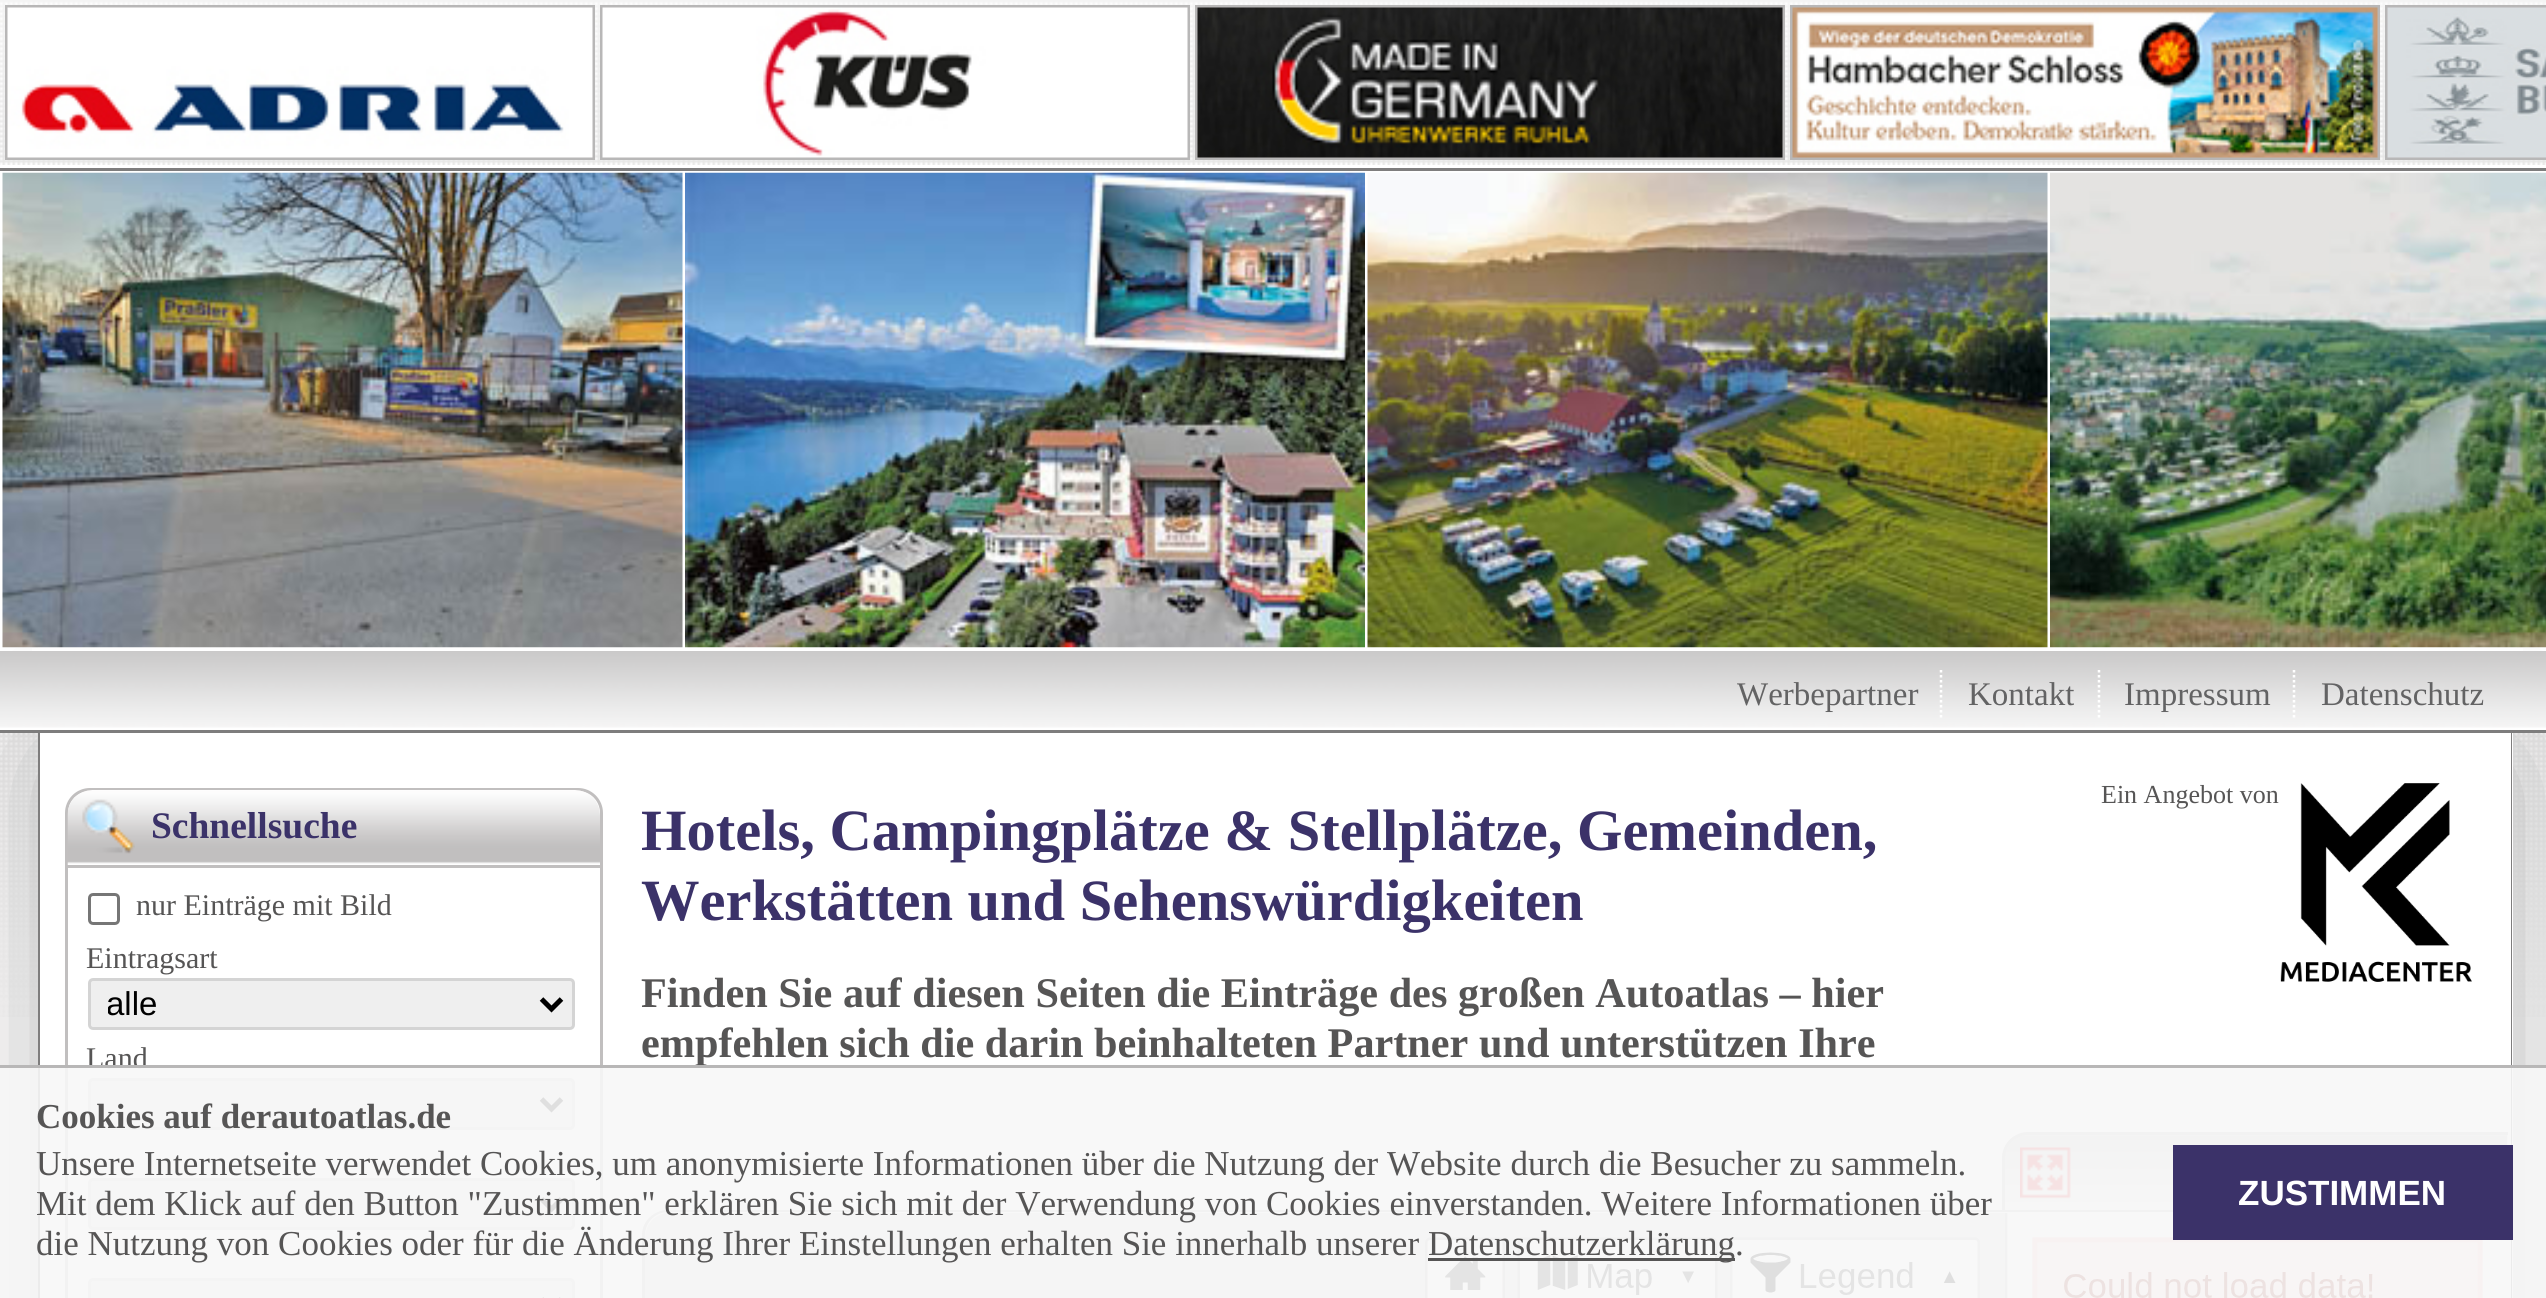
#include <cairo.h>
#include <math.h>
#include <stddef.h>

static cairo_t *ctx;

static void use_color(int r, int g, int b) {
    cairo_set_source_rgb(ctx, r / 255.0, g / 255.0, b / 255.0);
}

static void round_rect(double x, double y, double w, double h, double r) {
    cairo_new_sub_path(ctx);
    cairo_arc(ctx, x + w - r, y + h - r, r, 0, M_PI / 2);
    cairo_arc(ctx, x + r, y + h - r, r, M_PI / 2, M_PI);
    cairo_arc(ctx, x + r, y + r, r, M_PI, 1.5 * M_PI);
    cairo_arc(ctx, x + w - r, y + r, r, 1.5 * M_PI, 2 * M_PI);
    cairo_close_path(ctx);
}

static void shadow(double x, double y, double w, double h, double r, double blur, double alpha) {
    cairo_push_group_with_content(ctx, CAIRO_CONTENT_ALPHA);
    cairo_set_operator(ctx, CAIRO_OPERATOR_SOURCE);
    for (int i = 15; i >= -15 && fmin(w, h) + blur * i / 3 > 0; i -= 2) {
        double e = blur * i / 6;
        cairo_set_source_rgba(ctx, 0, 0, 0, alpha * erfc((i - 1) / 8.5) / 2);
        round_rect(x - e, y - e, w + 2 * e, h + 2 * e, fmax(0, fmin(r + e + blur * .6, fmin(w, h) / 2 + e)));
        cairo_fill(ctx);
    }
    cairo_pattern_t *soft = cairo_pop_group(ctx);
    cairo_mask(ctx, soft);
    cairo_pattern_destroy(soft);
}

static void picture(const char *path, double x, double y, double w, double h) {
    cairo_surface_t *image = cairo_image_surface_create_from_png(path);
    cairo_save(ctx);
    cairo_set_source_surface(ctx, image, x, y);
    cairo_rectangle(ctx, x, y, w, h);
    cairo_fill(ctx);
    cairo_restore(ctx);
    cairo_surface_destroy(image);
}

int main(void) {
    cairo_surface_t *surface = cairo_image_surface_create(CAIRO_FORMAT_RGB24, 2546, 1298);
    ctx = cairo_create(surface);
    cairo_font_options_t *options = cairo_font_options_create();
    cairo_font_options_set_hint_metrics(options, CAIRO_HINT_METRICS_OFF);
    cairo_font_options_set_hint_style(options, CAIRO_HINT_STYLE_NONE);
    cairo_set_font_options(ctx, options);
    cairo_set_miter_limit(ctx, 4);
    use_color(255, 255, 255);
    cairo_paint(ctx);
    picture("img1.png", 0, 733, 2546, 284);
    picture("img2.png", 0, 0, 2546, 165);
    use_color(126, 125, 125);
    cairo_rectangle(ctx, 0, 168, 2546, 3);
    cairo_fill(ctx);
    cairo_rectangle(ctx, 6.5, 6.5, 587, 152);
    use_color(184, 183, 183);
    cairo_set_line_width(ctx, 3);
    cairo_stroke(ctx);
    picture("img3.png", 7, 7, 586, 151);
    cairo_rectangle(ctx, 601.5, 6.5, 587, 152);
    cairo_stroke(ctx);
    picture("img4.png", 602, 7, 586, 151);
    cairo_rectangle(ctx, 1196.5, 6.5, 587, 152);
    cairo_stroke(ctx);
    picture("img5.png", 1197, 7, 586, 151);
    cairo_rectangle(ctx, 1791.5, 6.5, 587, 152);
    cairo_stroke(ctx);
    picture("img6.png", 1792, 7, 586, 151);
    cairo_rectangle(ctx, 2386.5, 6.5, 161, 152);
    cairo_stroke(ctx);
    picture("img7.png", 2387, 7, 159, 151);
    use_color(182, 181, 181);
    shadow(40, 735, 2475, 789, 38, 62.5, 1);
    use_color(255, 255, 255);
    cairo_rectangle(ctx, 38, 621, 2479, 27);
    cairo_fill(ctx);
    cairo_rectangle(ctx, 32, 648, 2491, 3);
    cairo_fill(ctx);
    picture("img8.png", 2, 172, 681, 476);
    picture("img9.png", 685, 172, 680, 476);
    picture("img10.png", 1367, 172, 681, 476);
    picture("img11.png", 2050, 172, 496, 476);
    cairo_rectangle(ctx, 0, 728, 2546, 2);
    cairo_fill(ctx);
    picture("img12.png", 0, 651, 2546, 77);
    cairo_rectangle(ctx, 40, 733, 2473, 565);
    cairo_fill(ctx);
    use_color(126, 125, 125);
    cairo_set_fill_rule(ctx, CAIRO_FILL_RULE_EVEN_ODD);
    cairo_new_path(ctx);
    cairo_move_to(ctx, 38, 732);
    cairo_line_to(ctx, 2512, 732);
    cairo_line_to(ctx, 2512, 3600);
    cairo_curve_to(ctx, 2512, 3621, 2496, 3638, 2475, 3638);
    cairo_line_to(ctx, 75, 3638);
    cairo_curve_to(ctx, 54, 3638, 38, 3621, 38, 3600);
    cairo_close_path(ctx);
    cairo_move_to(ctx, 40, 732);
    cairo_line_to(ctx, 2510, 732);
    cairo_line_to(ctx, 2510, 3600);
    cairo_curve_to(ctx, 2510, 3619, 2494, 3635, 2475, 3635);
    cairo_line_to(ctx, 75, 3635);
    cairo_curve_to(ctx, 56, 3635, 40, 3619, 40, 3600);
    cairo_close_path(ctx);
    cairo_fill(ctx);
    cairo_rectangle(ctx, 0, 730, 2546, 3);
    cairo_fill(ctx);
    cairo_select_font_face(ctx, "Liberation Serif", CAIRO_FONT_SLANT_NORMAL, CAIRO_FONT_WEIGHT_NORMAL);
    cairo_set_font_size(ctx, 33);
    use_color(99, 99, 100);
    cairo_move_to(ctx, 1737, 705);
    cairo_show_text(ctx, "Werbepartner");
    cairo_new_path(ctx);
    cairo_move_to(ctx, 1941, 670);
    cairo_line_to(ctx, 1941, 720);
    use_color(255, 255, 255);
    cairo_set_line_width(ctx, 2.5);
    cairo_set_dash(ctx, (double[]){2.5, 2.5}, 2, 0);
    cairo_stroke(ctx);
    use_color(99, 99, 100);
    cairo_move_to(ctx, 1968, 705);
    cairo_show_text(ctx, "Kontakt");
    cairo_new_path(ctx);
    cairo_move_to(ctx, 2099, 670);
    cairo_line_to(ctx, 2099, 720);
    use_color(255, 255, 255);
    cairo_stroke(ctx);
    use_color(99, 99, 100);
    cairo_move_to(ctx, 2124, 705);
    cairo_show_text(ctx, "Impressum");
    cairo_new_path(ctx);
    cairo_move_to(ctx, 2294, 670);
    cairo_line_to(ctx, 2294, 720);
    use_color(255, 255, 255);
    cairo_stroke(ctx);
    use_color(99, 99, 100);
    cairo_move_to(ctx, 2321, 705);
    cairo_show_text(ctx, "Datenschutz");
    round_rect(66.5, 789.5, 535, 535, 23.5);
    use_color(193, 191, 191);
    cairo_set_line_width(ctx, 3);
    cairo_set_dash(ctx, NULL, 0, 0);
    cairo_stroke(ctx);
    picture("img13.png", 67, 790, 533, 75);
    cairo_rectangle(ctx, 68, 865, 532, 3);
    cairo_fill(ctx);
    picture("img14.png", 82, 799, 53, 55);
    cairo_select_font_face(ctx, "Liberation Serif", CAIRO_FONT_SLANT_NORMAL, CAIRO_FONT_WEIGHT_BOLD);
    cairo_set_font_size(ctx, 37.5);
    use_color(59, 50, 105);
    cairo_move_to(ctx, 151, 838);
    cairo_show_text(ctx, "Schnellsuche");
    round_rect(89.5, 894.5, 29, 29, 3.5);
    use_color(118, 118, 118);
    cairo_stroke(ctx);
    cairo_select_font_face(ctx, "Liberation Serif", CAIRO_FONT_SLANT_NORMAL, CAIRO_FONT_WEIGHT_NORMAL);
    cairo_set_font_size(ctx, 30);
    use_color(86, 85, 85);
    cairo_move_to(ctx, 136, 915);
    cairo_show_text(ctx, "nur Einträge mit Bild");
    cairo_move_to(ctx, 86, 968);
    cairo_show_text(ctx, "Eintragsart");
    use_color(239, 239, 239);
    round_rect(89.5, 979.5, 484, 49, 3.5);
    cairo_fill_preserve(ctx);
    use_color(212, 212, 212);
    cairo_stroke(ctx);
    cairo_new_path(ctx);
    cairo_move_to(ctx, 541.5, 999);
    cairo_line_to(ctx, 551.5, 1009);
    cairo_line_to(ctx, 561.5, 999);
    use_color(0, 0, 0);
    cairo_set_line_width(ctx, 5);
    cairo_stroke(ctx);
    cairo_save(ctx);
    cairo_set_fill_rule(ctx, CAIRO_FILL_RULE_WINDING);
    cairo_rectangle(ctx, 108, 983, 417, 42);
    cairo_clip(ctx);
    cairo_select_font_face(ctx, "Liberation Sans", CAIRO_FONT_SLANT_NORMAL, CAIRO_FONT_WEIGHT_NORMAL);
    cairo_set_font_size(ctx, 33);
    cairo_move_to(ctx, 106, 1015);
    cairo_show_text(ctx, "alle");
    cairo_restore(ctx);
    use_color(86, 85, 85);
    cairo_move_to(ctx, 86, 1068);
    cairo_show_text(ctx, "Land");
    use_color(239, 239, 239);
    round_rect(89.5, 1079.5, 484, 49, 3.5);
    cairo_fill_preserve(ctx);
    use_color(212, 212, 212);
    cairo_set_line_width(ctx, 3);
    cairo_stroke(ctx);
    cairo_new_path(ctx);
    cairo_move_to(ctx, 541.5, 1099);
    cairo_line_to(ctx, 551.5, 1109);
    cairo_line_to(ctx, 561.5, 1099);
    use_color(0, 0, 0);
    cairo_set_line_width(ctx, 5);
    cairo_stroke(ctx);
    use_color(239, 239, 239);
    round_rect(89.5, 1179.5, 484, 49, 3.5);
    cairo_fill_preserve(ctx);
    use_color(212, 212, 212);
    cairo_set_line_width(ctx, 3);
    cairo_stroke(ctx);
    cairo_new_path(ctx);
    cairo_move_to(ctx, 541.5, 1199);
    cairo_line_to(ctx, 551.5, 1209);
    cairo_line_to(ctx, 561.5, 1199);
    use_color(0, 0, 0);
    cairo_set_line_width(ctx, 5);
    cairo_stroke(ctx);
    use_color(239, 239, 239);
    round_rect(89.5, 1279.5, 484, 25, 3.5);
    cairo_fill_preserve(ctx);
    use_color(212, 212, 212);
    cairo_set_line_width(ctx, 3);
    cairo_stroke(ctx);
    cairo_new_path(ctx);
    cairo_move_to(ctx, 541.5, 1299);
    cairo_line_to(ctx, 551.5, 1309);
    cairo_line_to(ctx, 561.5, 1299);
    use_color(0, 0, 0);
    cairo_set_line_width(ctx, 5);
    cairo_stroke(ctx);
    use_color(255, 255, 255);
    cairo_rectangle(ctx, 2510, 733, 1, 565);
    cairo_fill(ctx);
    cairo_set_font_size(ctx, 26);
    use_color(86, 85, 85);
    cairo_move_to(ctx, 2101, 803);
    cairo_show_text(ctx, "Ein Angebot von");
    picture("img15.png", 2280, 783, 192, 199);
    cairo_select_font_face(ctx, "Liberation Serif", CAIRO_FONT_SLANT_NORMAL, CAIRO_FONT_WEIGHT_BOLD);
    cairo_set_font_size(ctx, 58.5);
    use_color(59, 50, 105);
    cairo_move_to(ctx, 641, 850);
    cairo_show_text(ctx, "Hotels, Campingplätze & Stellplätze, Gemeinden,");
    cairo_move_to(ctx, 641, 920);
    cairo_show_text(ctx, "Werkstätten und Sehenswürdigkeiten");
    cairo_set_font_size(ctx, 42.25);
    use_color(86, 85, 85);
    cairo_move_to(ctx, 641, 1007);
    cairo_show_text(ctx, "Finden Sie auf diesen Seiten die Einträge des großen Autoatlas – hier");
    cairo_move_to(ctx, 641, 1057);
    cairo_show_text(ctx, "empfehlen sich die darin beinhalteten Partner und unterstützen Ihre");
    use_color(193, 191, 191);
    cairo_new_path(ctx);
    cairo_move_to(ctx, 668, 1210);
    cairo_line_to(ctx, 2508, 1210);
    cairo_line_to(ctx, 2508, 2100);
    cairo_line_to(ctx, 668, 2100);
    cairo_curve_to(ctx, 654, 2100, 642, 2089, 642, 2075);
    cairo_line_to(ctx, 642, 1235);
    cairo_curve_to(ctx, 642, 1221, 654, 1210, 668, 1210);
    cairo_close_path(ctx);
    cairo_move_to(ctx, 668, 1212);
    cairo_line_to(ctx, 2508, 1212);
    cairo_line_to(ctx, 2508, 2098);
    cairo_line_to(ctx, 668, 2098);
    cairo_curve_to(ctx, 655, 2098, 645, 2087, 645, 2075);
    cairo_line_to(ctx, 645, 1235);
    cairo_curve_to(ctx, 645, 1223, 655, 1212, 668, 1212);
    cairo_close_path(ctx);
    cairo_fill(ctx);
    picture("img16.png", 2002, 1134, 506, 76);
    cairo_new_path(ctx);
    cairo_move_to(ctx, 2028, 1132);
    cairo_line_to(ctx, 2508, 1132);
    cairo_line_to(ctx, 2508, 1210);
    cairo_line_to(ctx, 2002, 1210);
    cairo_line_to(ctx, 2002, 1158);
    cairo_curve_to(ctx, 2002, 1144, 2014, 1132, 2028, 1132);
    cairo_close_path(ctx);
    cairo_move_to(ctx, 2028, 1135);
    cairo_line_to(ctx, 2508, 1135);
    cairo_line_to(ctx, 2508, 1210);
    cairo_line_to(ctx, 2005, 1210);
    cairo_line_to(ctx, 2005, 1158);
    cairo_curve_to(ctx, 2005, 1145, 2015, 1135, 2028, 1135);
    cairo_close_path(ctx);
    cairo_fill(ctx);
    picture("img17.png", 2020, 1147, 51, 52);
    picture("img18.png", 645, 1212, 1838, 86);
    cairo_set_source_rgba(ctx, 0.969, 0.969, 0.969, 0.9);
    cairo_rectangle(ctx, 0, 1068, 2546, 230);
    cairo_fill(ctx);
    use_color(184, 183, 183);
    cairo_rectangle(ctx, 0, 1065, 2546, 3);
    cairo_fill(ctx);
    cairo_set_font_size(ctx, 35);
    use_color(86, 85, 85);
    cairo_move_to(ctx, 36, 1128);
    cairo_show_text(ctx, "Cookies auf derautoatlas.de");
    cairo_select_font_face(ctx, "Liberation Serif", CAIRO_FONT_SLANT_NORMAL, CAIRO_FONT_WEIGHT_NORMAL);
    cairo_move_to(ctx, 36, 1175);
    cairo_show_text(ctx, "Unsere Internetseite verwendet Cookies, um anonymisierte Informationen über die Nutzung der Website durch die Besucher zu sammeln.");
    cairo_move_to(ctx, 36, 1215);
    cairo_show_text(ctx, "Mit dem Klick auf den Button \"Zustimmen\" erklären Sie sich mit der Verwendung von Cookies einverstanden. Weitere Informationen über");
    cairo_move_to(ctx, 36, 1255);
    cairo_show_text(ctx, "die Nutzung von Cookies oder für die Änderung Ihrer Einstellungen erhalten Sie innerhalb unserer");
    cairo_rectangle(ctx, 1428, 1258, 307, 3);
    cairo_fill(ctx);
    cairo_move_to(ctx, 1428, 1255);
    cairo_show_text(ctx, "Datenschutzerklärung.");
    use_color(59, 50, 105);
    cairo_rectangle(ctx, 2173, 1145, 340, 95);
    cairo_fill(ctx);
    cairo_select_font_face(ctx, "Liberation Sans", CAIRO_FONT_SLANT_NORMAL, CAIRO_FONT_WEIGHT_BOLD);
    use_color(255, 255, 255);
    cairo_move_to(ctx, 2238, 1205);
    cairo_show_text(ctx, "ZUSTIMMEN");
    cairo_surface_write_to_png(surface, "result.png");
    cairo_font_options_destroy(options);
    cairo_destroy(ctx);
    cairo_surface_destroy(surface);
    return 0;
}
